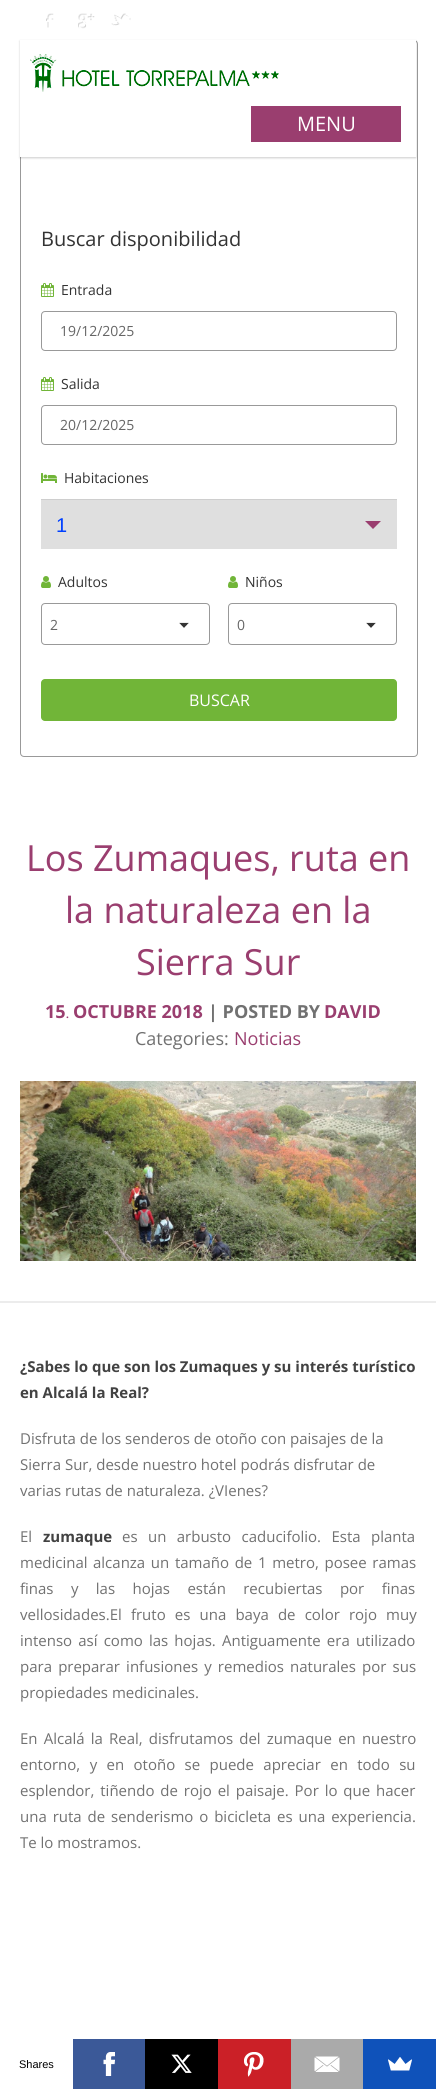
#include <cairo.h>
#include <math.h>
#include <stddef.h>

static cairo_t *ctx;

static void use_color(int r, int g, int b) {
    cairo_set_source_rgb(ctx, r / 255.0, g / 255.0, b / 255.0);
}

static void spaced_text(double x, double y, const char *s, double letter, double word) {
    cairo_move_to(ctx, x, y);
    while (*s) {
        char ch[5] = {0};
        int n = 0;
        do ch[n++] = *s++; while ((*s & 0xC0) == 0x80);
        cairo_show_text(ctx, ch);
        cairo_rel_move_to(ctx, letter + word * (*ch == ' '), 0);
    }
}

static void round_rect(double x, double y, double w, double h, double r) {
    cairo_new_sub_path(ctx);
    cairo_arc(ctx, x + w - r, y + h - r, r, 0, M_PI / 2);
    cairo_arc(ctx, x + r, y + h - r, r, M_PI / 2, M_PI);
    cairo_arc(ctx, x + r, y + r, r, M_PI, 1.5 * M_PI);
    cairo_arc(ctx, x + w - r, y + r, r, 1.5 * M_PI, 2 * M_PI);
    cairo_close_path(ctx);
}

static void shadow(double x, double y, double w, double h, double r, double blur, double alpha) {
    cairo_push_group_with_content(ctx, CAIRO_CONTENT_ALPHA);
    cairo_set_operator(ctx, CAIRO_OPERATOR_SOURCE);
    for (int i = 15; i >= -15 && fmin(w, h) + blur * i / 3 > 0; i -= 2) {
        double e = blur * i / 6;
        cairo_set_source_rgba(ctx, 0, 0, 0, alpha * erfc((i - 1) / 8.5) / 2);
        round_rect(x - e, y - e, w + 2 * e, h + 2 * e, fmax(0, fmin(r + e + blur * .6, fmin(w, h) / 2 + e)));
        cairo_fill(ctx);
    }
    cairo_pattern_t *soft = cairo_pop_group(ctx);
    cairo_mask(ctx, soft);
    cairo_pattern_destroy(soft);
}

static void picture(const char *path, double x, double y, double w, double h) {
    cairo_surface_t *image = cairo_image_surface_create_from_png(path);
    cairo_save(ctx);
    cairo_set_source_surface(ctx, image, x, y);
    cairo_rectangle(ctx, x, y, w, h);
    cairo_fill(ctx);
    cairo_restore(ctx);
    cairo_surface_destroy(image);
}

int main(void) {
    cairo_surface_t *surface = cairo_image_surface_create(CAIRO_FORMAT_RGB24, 436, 2089);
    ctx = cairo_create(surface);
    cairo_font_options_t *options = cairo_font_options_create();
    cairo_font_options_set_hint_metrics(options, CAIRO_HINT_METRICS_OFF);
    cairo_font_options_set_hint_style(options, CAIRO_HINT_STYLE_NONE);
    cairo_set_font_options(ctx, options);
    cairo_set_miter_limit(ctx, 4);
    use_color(255, 255, 255);
    cairo_paint(ctx);
    picture("img1.png", 46, 13, 8, 15);
    picture("img2.png", 78, 13, 17, 16);
    picture("img3.png", 111, 13, 20, 13);
    round_rect(20.5, 40.5, 397, 716, 3.5);
    use_color(153, 153, 153);
    cairo_set_line_width(ctx, 1);
    cairo_stroke(ctx);
    use_color(0, 0, 0);
    shadow(20, 41, 396, 117, 0, 1, 0.2);
    use_color(255, 255, 255);
    cairo_rectangle(ctx, 20, 40, 396, 117);
    cairo_fill(ctx);
    picture("img4.png", 30, 54, 249, 38);
    use_color(154, 62, 111);
    cairo_rectangle(ctx, 251, 106, 150, 36);
    cairo_fill(ctx);
    cairo_select_font_face(ctx, "Open Sans", CAIRO_FONT_SLANT_NORMAL, CAIRO_FONT_WEIGHT_NORMAL);
    cairo_set_font_size(ctx, 20);
    use_color(255, 255, 255);
    cairo_move_to(ctx, 297, 131);
    cairo_show_text(ctx, "MENU");
    use_color(51, 51, 51);
    cairo_move_to(ctx, 41, 246);
    cairo_show_text(ctx, "Buscar disponibilidad");
    picture("img5.png", 41, 283, 13, 14);
    cairo_set_font_size(ctx, 14);
    cairo_move_to(ctx, 61, 295);
    cairo_show_text(ctx, "Entrada");
    round_rect(41.5, 311.5, 355, 39, 3.5);
    use_color(153, 153, 153);
    cairo_stroke(ctx);
    use_color(102, 102, 102);
    cairo_move_to(ctx, 60, 336);
    cairo_show_text(ctx, "19/12/2025");
    picture("img5.png", 41, 377, 13, 14);
    use_color(51, 51, 51);
    cairo_move_to(ctx, 61, 389);
    cairo_show_text(ctx, "Salida");
    round_rect(41.5, 405.5, 355, 39, 3.5);
    use_color(153, 153, 153);
    cairo_stroke(ctx);
    use_color(102, 102, 102);
    cairo_move_to(ctx, 60, 430);
    cairo_show_text(ctx, "20/12/2025");
    picture("img6.png", 41, 473, 16, 10);
    use_color(51, 51, 51);
    cairo_move_to(ctx, 64, 483);
    cairo_show_text(ctx, "Habitaciones");
    use_color(223, 223, 223);
    cairo_rectangle(ctx, 41, 500, 356, 49);
    cairo_fill(ctx);
    use_color(206, 206, 206);
    cairo_rectangle(ctx, 41, 499, 356, 1);
    cairo_fill(ctx);
    cairo_select_font_face(ctx, "Liberation Sans", CAIRO_FONT_SLANT_NORMAL, CAIRO_FONT_WEIGHT_NORMAL);
    cairo_set_font_size(ctx, 20);
    use_color(0, 64, 255);
    cairo_move_to(ctx, 56, 532);
    cairo_show_text(ctx, "1");
    use_color(154, 62, 111);
    cairo_new_path(ctx);
    cairo_move_to(ctx, 365, 521);
    cairo_line_to(ctx, 381, 521);
    cairo_line_to(ctx, 373, 529);
    cairo_close_path(ctx);
    cairo_fill(ctx);
    picture("img7.png", 41, 576, 10, 12);
    cairo_select_font_face(ctx, "Open Sans", CAIRO_FONT_SLANT_NORMAL, CAIRO_FONT_WEIGHT_NORMAL);
    cairo_set_font_size(ctx, 14);
    use_color(51, 51, 51);
    cairo_move_to(ctx, 58, 587);
    cairo_show_text(ctx, "Adultos");
    picture("img8.png", 179, 622, 10, 6);
    round_rect(41.5, 603.5, 168, 41, 3.5);
    use_color(153, 153, 153);
    cairo_stroke(ctx);
    use_color(102, 102, 102);
    cairo_move_to(ctx, 50, 630);
    cairo_show_text(ctx, "2");
    picture("img7.png", 228, 576, 10, 12);
    use_color(51, 51, 51);
    cairo_move_to(ctx, 245, 587);
    cairo_show_text(ctx, "Niños");
    picture("img8.png", 366, 622, 10, 6);
    round_rect(228.5, 603.5, 168, 41, 3.5);
    use_color(153, 153, 153);
    cairo_stroke(ctx);
    use_color(102, 102, 102);
    cairo_move_to(ctx, 237, 630);
    cairo_show_text(ctx, "0");
    use_color(113, 181, 56);
    round_rect(41, 679, 356, 42, 4);
    cairo_fill(ctx);
    cairo_set_font_size(ctx, 16);
    use_color(255, 255, 255);
    cairo_move_to(ctx, 189, 706);
    cairo_show_text(ctx, "BUSCAR");
    use_color(236, 236, 236);
    cairo_rectangle(ctx, 0, 1301, 436, 2);
    cairo_fill(ctx);
    cairo_set_font_size(ctx, 36);
    use_color(154, 62, 111);
    cairo_move_to(ctx, 26, 871);
    cairo_show_text(ctx, "Los Zumaques, ruta en");
    cairo_move_to(ctx, 65, 923);
    cairo_show_text(ctx, "la naturaleza en la");
    cairo_move_to(ctx, 136, 975);
    cairo_show_text(ctx, "Sierra Sur");
    cairo_select_font_face(ctx, "Open Sans", CAIRO_FONT_SLANT_NORMAL, CAIRO_FONT_WEIGHT_BOLD);
    cairo_set_font_size(ctx, 18);
    cairo_move_to(ctx, 45, 1018);
    cairo_show_text(ctx, "15");
    cairo_set_font_size(ctx, 10);
    cairo_move_to(ctx, 66, 1018);
    cairo_show_text(ctx, ".");
    cairo_set_font_size(ctx, 18);
    cairo_move_to(ctx, 73, 1018);
    cairo_show_text(ctx, "OCTUBRE 2018");
    use_color(113, 113, 113);
    cairo_move_to(ctx, 208, 1018);
    cairo_show_text(ctx, "| POSTED BY");
    use_color(154, 62, 111);
    cairo_move_to(ctx, 324, 1018);
    cairo_show_text(ctx, "DAVID");
    cairo_select_font_face(ctx, "Open Sans", CAIRO_FONT_SLANT_NORMAL, CAIRO_FONT_WEIGHT_NORMAL);
    use_color(113, 113, 113);
    cairo_move_to(ctx, 135, 1045);
    cairo_show_text(ctx, "Categories:");
    use_color(154, 62, 111);
    cairo_move_to(ctx, 234, 1045);
    cairo_show_text(ctx, "Noticias");
    picture("img9.png", 20, 1081, 396, 180);
    cairo_select_font_face(ctx, "Open Sans", CAIRO_FONT_SLANT_NORMAL, CAIRO_FONT_WEIGHT_BOLD);
    cairo_set_font_size(ctx, 15);
    use_color(66, 66, 66);
    cairo_move_to(ctx, 20, 1372);
    cairo_show_text(ctx, "¿Sabes lo que son los Zumaques y su interés turístico");
    cairo_move_to(ctx, 20, 1398);
    cairo_show_text(ctx, "en Alcalá la Real?");
    cairo_select_font_face(ctx, "Open Sans", CAIRO_FONT_SLANT_NORMAL, CAIRO_FONT_WEIGHT_NORMAL);
    use_color(113, 113, 113);
    cairo_move_to(ctx, 20, 1444);
    cairo_show_text(ctx, "Disfruta de los senderos de otoño con paisajes de la");
    cairo_move_to(ctx, 20, 1470);
    cairo_show_text(ctx, "Sierra Sur, desde nuestro hotel podrás disfrutar de");
    cairo_move_to(ctx, 20, 1496);
    cairo_show_text(ctx, "varias rutas de naturaleza. ¿VIenes?");
    cairo_move_to(ctx, 20, 1542);
    cairo_show_text(ctx, "El");
    cairo_select_font_face(ctx, "Open Sans", CAIRO_FONT_SLANT_NORMAL, CAIRO_FONT_WEIGHT_BOLD);
    use_color(66, 66, 66);
    cairo_move_to(ctx, 43, 1542);
    cairo_show_text(ctx, "zumaque");
    cairo_select_font_face(ctx, "Open Sans", CAIRO_FONT_SLANT_NORMAL, CAIRO_FONT_WEIGHT_NORMAL);
    use_color(113, 113, 113);
    spaced_text(122, 1542, "es un arbusto caducifolio. Esta planta", 0, 6.5);
    cairo_move_to(ctx, 20, 1568);
    cairo_show_text(ctx, "medicinal");
    spaced_text(93, 1568, "alcanza un tamaño de 1 metro, posee ramas", 0, 1.75);
    spaced_text(20, 1594, "finas y las hojas están recubiertas por finas", 0, 13.5);
    spaced_text(20, 1620, "vellosidades.El fruto es una baya de color rojo muy", 0, 5.25);
    spaced_text(20, 1646, "intenso así como las hojas. Antiguamente era utilizado", 0, 2.25);
    spaced_text(20, 1672, "para preparar infusiones y remedios naturales por sus", 0, 2.25);
    cairo_move_to(ctx, 20, 1698);
    cairo_show_text(ctx, "propiedades medicinales.");
    spaced_text(20, 1744, "En Alcalá la Real, disfrutamos del zumaque en nuestro", 0, 2.25);
    spaced_text(20, 1770, "entorno, y en otoño se puede apreciar en todo su", 0, 5.5);
    spaced_text(20, 1796, "esplendor, tiñendo de rojo el paisaje. Por lo que hacer", 0, 2);
    spaced_text(20, 1822, "una ruta de senderismo o bicicleta es una experiencia.", 0, 2);
    cairo_move_to(ctx, 20, 1848);
    cairo_show_text(ctx, "Te lo mostramos.");
    cairo_select_font_face(ctx, "Liberation Sans", CAIRO_FONT_SLANT_NORMAL, CAIRO_FONT_WEIGHT_NORMAL);
    cairo_set_font_size(ctx, 11);
    use_color(0, 0, 0);
    cairo_move_to(ctx, 19, 2068);
    cairo_show_text(ctx, "Shares");
    use_color(59, 89, 152);
    cairo_rectangle(ctx, 73, 2039, 72, 50);
    cairo_fill(ctx);
    picture("img10.png", 103, 2052, 12, 24);
    use_color(0, 0, 0);
    cairo_rectangle(ctx, 145, 2039, 73, 50);
    cairo_fill(ctx);
    picture("img11.png", 171, 2054, 21, 19);
    use_color(203, 32, 39);
    cairo_rectangle(ctx, 218, 2039, 73, 50);
    cairo_fill(ctx);
    picture("img12.png", 244, 2052, 20, 25);
    use_color(170, 170, 170);
    cairo_rectangle(ctx, 291, 2039, 72, 50);
    cairo_fill(ctx);
    picture("img13.png", 314, 2056, 26, 16);
    use_color(15, 82, 186);
    cairo_rectangle(ctx, 363, 2039, 73, 50);
    cairo_fill(ctx);
    picture("img14.png", 388, 2057, 24, 14);
    cairo_surface_write_to_png(surface, "result.png");
    cairo_font_options_destroy(options);
    cairo_destroy(ctx);
    cairo_surface_destroy(surface);
    return 0;
}
